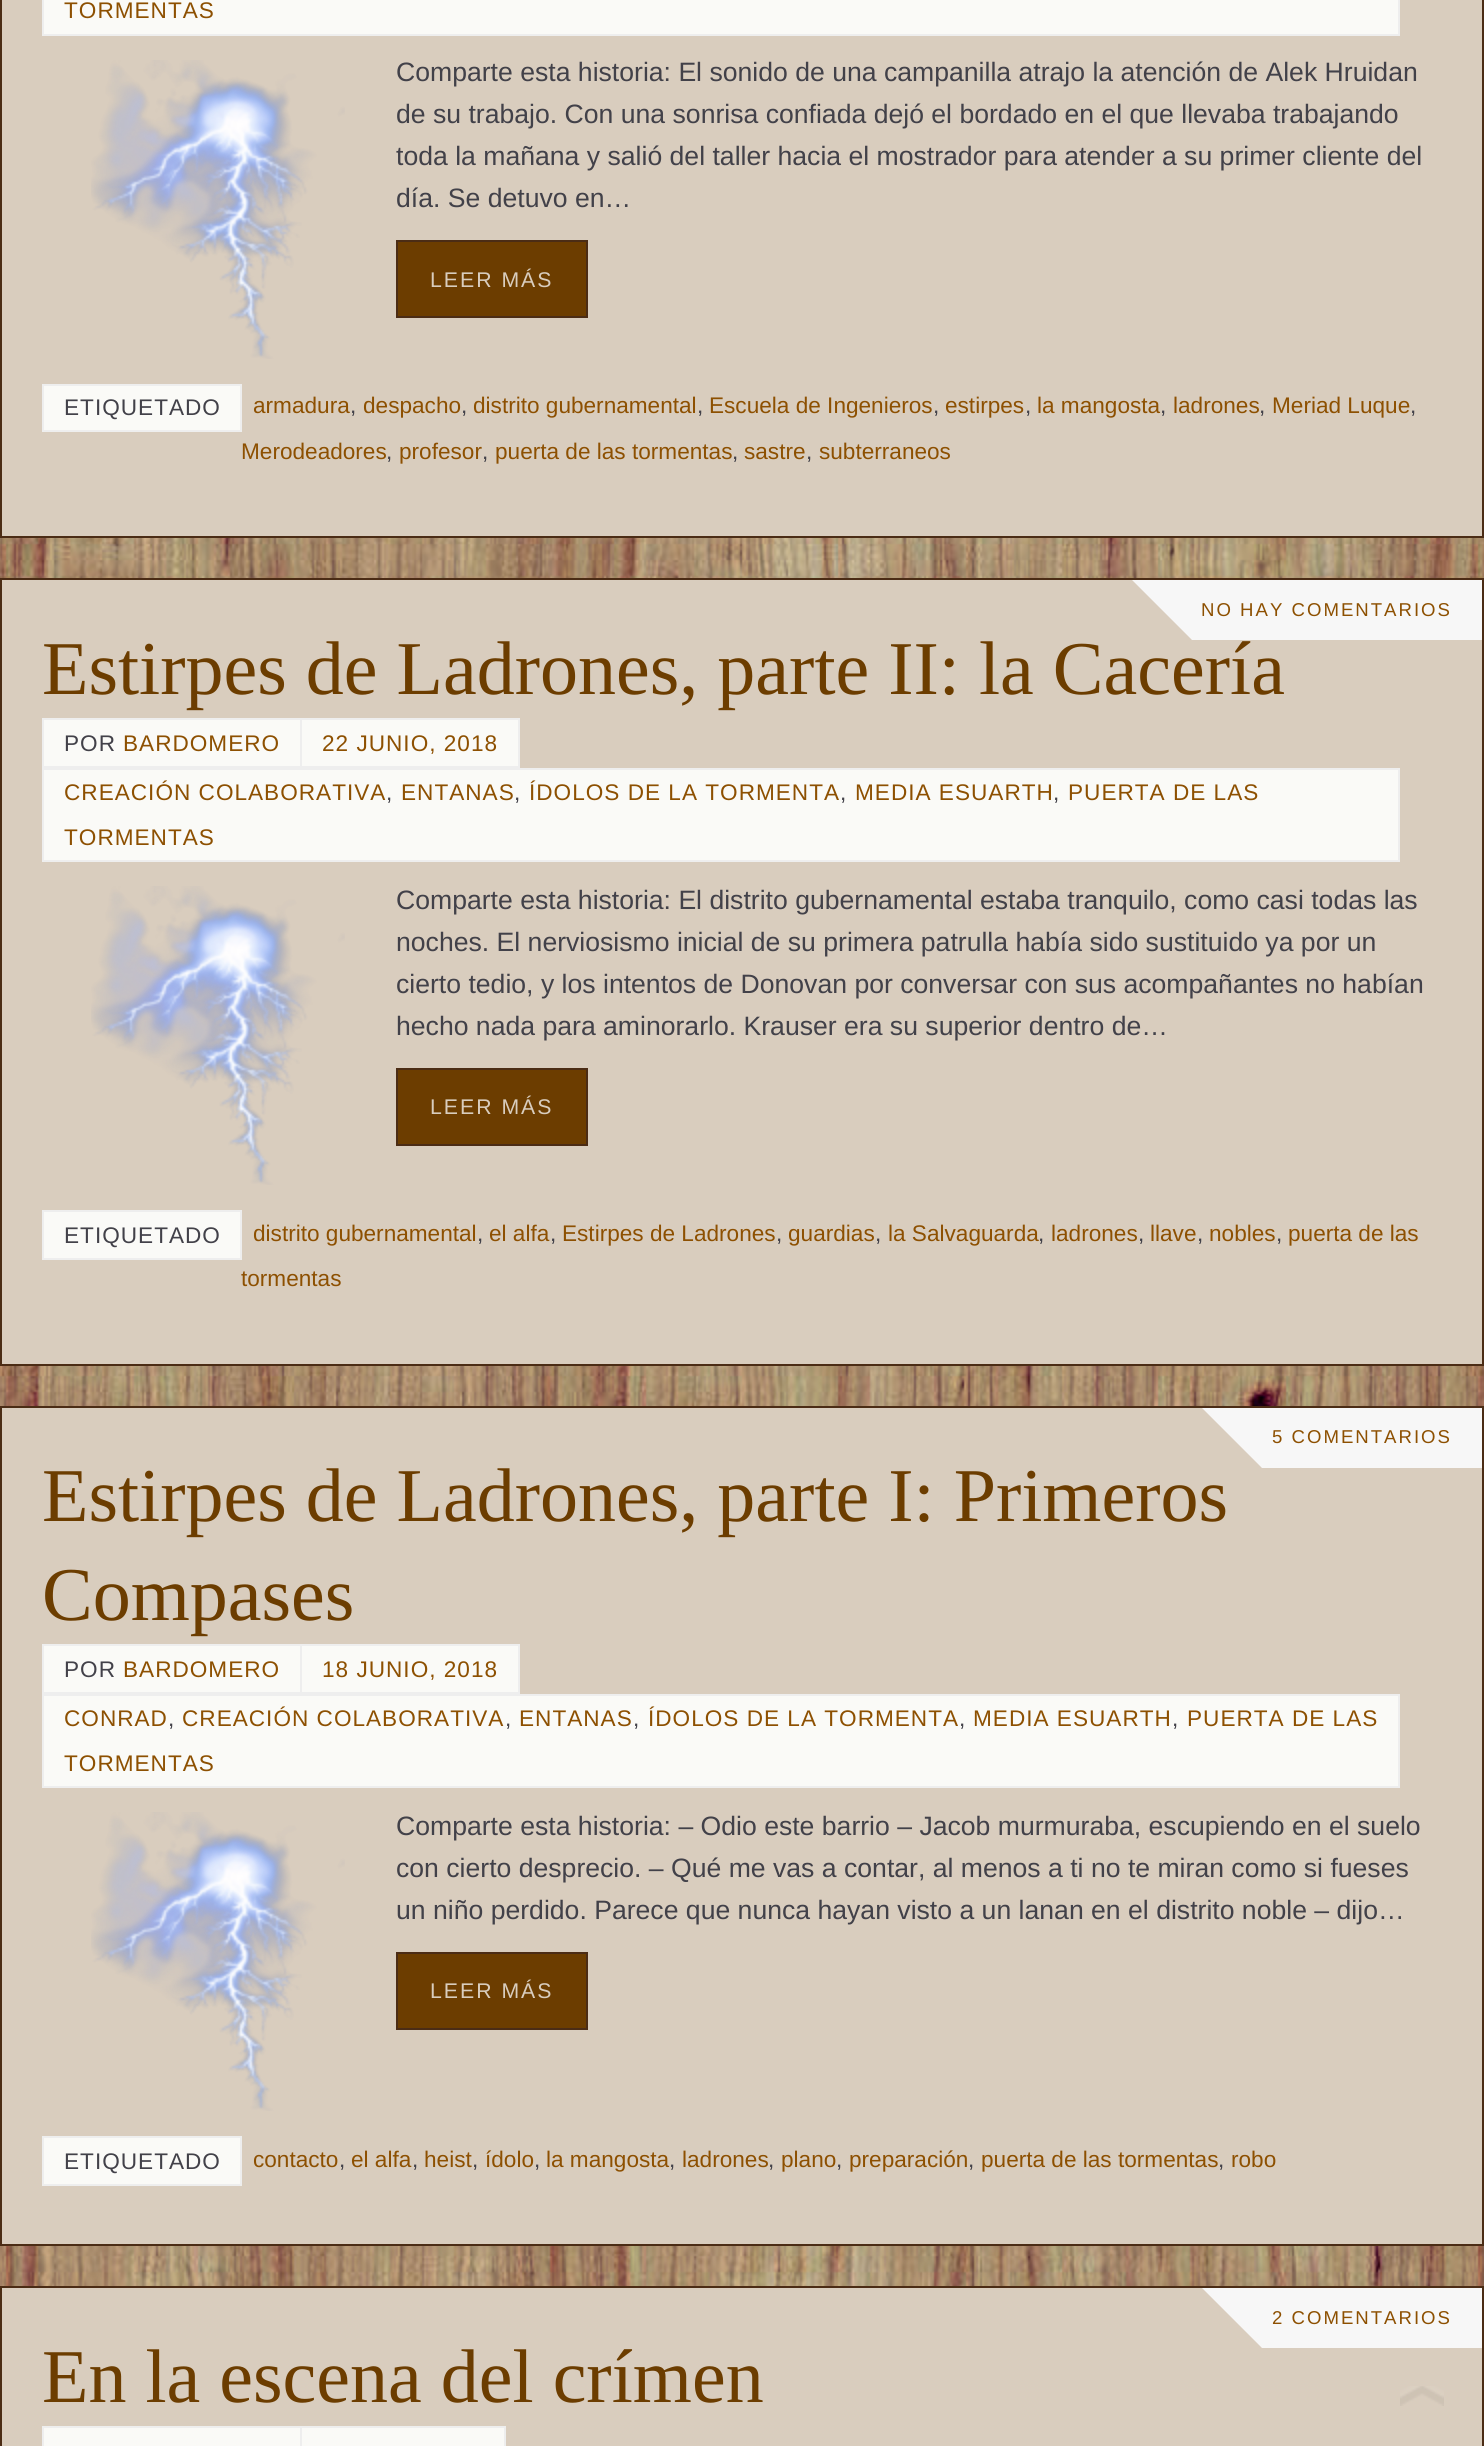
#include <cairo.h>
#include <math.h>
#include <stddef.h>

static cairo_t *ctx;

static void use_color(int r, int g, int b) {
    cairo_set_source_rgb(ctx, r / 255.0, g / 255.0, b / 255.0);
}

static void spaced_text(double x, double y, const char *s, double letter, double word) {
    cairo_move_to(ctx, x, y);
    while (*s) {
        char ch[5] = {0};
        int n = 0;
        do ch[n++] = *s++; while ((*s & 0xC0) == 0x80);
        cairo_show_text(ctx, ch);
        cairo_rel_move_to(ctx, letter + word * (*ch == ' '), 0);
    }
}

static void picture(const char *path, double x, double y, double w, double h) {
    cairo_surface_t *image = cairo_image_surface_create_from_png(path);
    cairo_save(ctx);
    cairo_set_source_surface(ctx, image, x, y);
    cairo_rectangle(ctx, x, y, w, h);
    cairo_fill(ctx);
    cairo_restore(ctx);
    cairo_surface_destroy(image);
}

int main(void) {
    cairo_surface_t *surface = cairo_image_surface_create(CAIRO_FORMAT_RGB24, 1484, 2446);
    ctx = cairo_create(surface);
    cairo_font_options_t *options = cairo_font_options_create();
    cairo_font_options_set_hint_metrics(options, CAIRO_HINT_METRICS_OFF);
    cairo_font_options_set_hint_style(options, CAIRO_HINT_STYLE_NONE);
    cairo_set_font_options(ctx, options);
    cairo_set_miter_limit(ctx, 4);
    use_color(255, 255, 255);
    cairo_paint(ctx);
    picture("img1.png", 0, 538, 1484, 1748);
    use_color(217, 205, 190);
    cairo_rectangle(ctx, 1, -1, 1482, 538);
    cairo_fill_preserve(ctx);
    use_color(75, 44, 21);
    cairo_stroke(ctx);
    use_color(250, 250, 247);
    cairo_rectangle(ctx, 43, -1, 1356, 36);
    cairo_fill_preserve(ctx);
    use_color(238, 238, 238);
    cairo_stroke(ctx);
    cairo_select_font_face(ctx, "Liberation Sans", CAIRO_FONT_SLANT_NORMAL, CAIRO_FONT_WEIGHT_NORMAL);
    cairo_set_font_size(ctx, 22.6);
    use_color(141, 80, 1);
    spaced_text(64, 18, "TORMENTAS", 1, 0);
    picture("img2.png", 91, 60, 254, 299);
    cairo_set_font_size(ctx, 26.6);
    use_color(66, 65, 73);
    cairo_move_to(ctx, 396, 81);
    cairo_show_text(ctx, "Comparte esta historia: El sonido de una campanilla atrajo la atención de Alek Hruidan");
    cairo_move_to(ctx, 396, 123);
    cairo_show_text(ctx, "de su trabajo. Con una sonrisa confiada dejó el bordado en el que llevaba trabajando");
    cairo_move_to(ctx, 396, 165);
    cairo_show_text(ctx, "toda la mañana y salió del taller hacia el mostrador para atender a su primer cliente del");
    cairo_move_to(ctx, 396, 207);
    cairo_show_text(ctx, "día. Se detuvo en…");
    use_color(108, 61, 0);
    cairo_rectangle(ctx, 397, 241, 190, 76);
    cairo_fill_preserve(ctx);
    use_color(75, 44, 21);
    cairo_stroke(ctx);
    cairo_set_font_size(ctx, 21.25);
    use_color(217, 205, 190);
    spaced_text(430, 287, "LEER MÁS", 2, 0);
    use_color(250, 250, 247);
    cairo_rectangle(ctx, 43, 385, 198, 46);
    cairo_fill_preserve(ctx);
    use_color(238, 238, 238);
    cairo_stroke(ctx);
    cairo_set_font_size(ctx, 22.6);
    use_color(66, 65, 73);
    spaced_text(64, 415, "ETIQUETADO", 1, 0);
    use_color(141, 80, 1);
    cairo_move_to(ctx, 253, 413);
    cairo_show_text(ctx, "armadura");
    use_color(66, 65, 73);
    cairo_move_to(ctx, 350, 413);
    cairo_show_text(ctx, ",");
    use_color(141, 80, 1);
    cairo_move_to(ctx, 363, 413);
    cairo_show_text(ctx, "despacho");
    use_color(66, 65, 73);
    cairo_move_to(ctx, 461, 413);
    cairo_show_text(ctx, ",");
    use_color(141, 80, 1);
    cairo_move_to(ctx, 473, 413);
    cairo_show_text(ctx, "distrito gubernamental");
    use_color(66, 65, 73);
    cairo_move_to(ctx, 697, 413);
    cairo_show_text(ctx, ",");
    use_color(141, 80, 1);
    cairo_move_to(ctx, 709, 413);
    cairo_show_text(ctx, "Escuela de Ingenieros");
    use_color(66, 65, 73);
    cairo_move_to(ctx, 933, 413);
    cairo_show_text(ctx, ",");
    use_color(141, 80, 1);
    cairo_move_to(ctx, 945, 413);
    cairo_show_text(ctx, "estirpes");
    use_color(66, 65, 73);
    cairo_move_to(ctx, 1025, 413);
    cairo_show_text(ctx, ",");
    use_color(141, 80, 1);
    cairo_move_to(ctx, 1037, 413);
    cairo_show_text(ctx, "la mangosta");
    use_color(66, 65, 73);
    cairo_move_to(ctx, 1160, 413);
    cairo_show_text(ctx, ",");
    use_color(141, 80, 1);
    cairo_move_to(ctx, 1173, 413);
    cairo_show_text(ctx, "ladrones");
    use_color(66, 65, 73);
    cairo_move_to(ctx, 1259, 413);
    cairo_show_text(ctx, ",");
    use_color(141, 80, 1);
    cairo_move_to(ctx, 1272, 413);
    cairo_show_text(ctx, "Meriad Luque");
    use_color(66, 65, 73);
    cairo_move_to(ctx, 1410, 413);
    cairo_show_text(ctx, ",");
    use_color(141, 80, 1);
    cairo_move_to(ctx, 241, 459);
    cairo_show_text(ctx, "Merodeadores");
    use_color(66, 65, 73);
    cairo_move_to(ctx, 386, 459);
    cairo_show_text(ctx, ",");
    use_color(141, 80, 1);
    cairo_move_to(ctx, 399, 459);
    cairo_show_text(ctx, "profesor");
    use_color(66, 65, 73);
    cairo_move_to(ctx, 482, 459);
    cairo_show_text(ctx, ",");
    use_color(141, 80, 1);
    cairo_move_to(ctx, 495, 459);
    cairo_show_text(ctx, "puerta de las tormentas");
    use_color(66, 65, 73);
    cairo_move_to(ctx, 732, 459);
    cairo_show_text(ctx, ",");
    use_color(141, 80, 1);
    cairo_move_to(ctx, 744, 459);
    cairo_show_text(ctx, "sastre");
    use_color(66, 65, 73);
    cairo_move_to(ctx, 806, 459);
    cairo_show_text(ctx, ",");
    use_color(141, 80, 1);
    cairo_move_to(ctx, 819, 459);
    cairo_show_text(ctx, "subterraneos");
    use_color(217, 205, 190);
    cairo_rectangle(ctx, 1, 579, 1482, 786);
    cairo_fill_preserve(ctx);
    use_color(75, 44, 21);
    cairo_stroke(ctx);
    use_color(247, 247, 247);
    cairo_rectangle(ctx, 1192, 580, 290, 60);
    cairo_fill(ctx);
    cairo_new_path(ctx);
    cairo_move_to(ctx, 1132, 580);
    cairo_line_to(ctx, 1192, 580);
    cairo_line_to(ctx, 1192, 640);
    cairo_close_path(ctx);
    cairo_fill(ctx);
    cairo_set_font_size(ctx, 18.6);
    use_color(141, 80, 1);
    spaced_text(1201, 616, "NO HAY COMENTARIOS", 2, 0);
    cairo_select_font_face(ctx, "Liberation Serif", CAIRO_FONT_SLANT_NORMAL, CAIRO_FONT_WEIGHT_NORMAL);
    cairo_set_font_size(ctx, 76);
    use_color(108, 61, 0);
    cairo_move_to(ctx, 42, 694);
    cairo_show_text(ctx, "Estirpes de Ladrones, parte II: la Cacería");
    use_color(250, 250, 247);
    cairo_rectangle(ctx, 43, 719, 258, 48);
    cairo_fill_preserve(ctx);
    use_color(238, 238, 238);
    cairo_stroke(ctx);
    cairo_select_font_face(ctx, "Liberation Sans", CAIRO_FONT_SLANT_NORMAL, CAIRO_FONT_WEIGHT_NORMAL);
    cairo_set_font_size(ctx, 22.6);
    use_color(66, 65, 73);
    spaced_text(64, 751, "POR", 1, 0);
    use_color(141, 80, 1);
    spaced_text(123, 751, "BARDOMERO", 1, 0);
    use_color(250, 250, 247);
    cairo_rectangle(ctx, 301, 719, 218, 48);
    cairo_fill_preserve(ctx);
    use_color(238, 238, 238);
    cairo_stroke(ctx);
    use_color(141, 80, 1);
    spaced_text(322, 751, "22 JUNIO, 2018", 1, 0);
    use_color(250, 250, 247);
    cairo_rectangle(ctx, 43, 769, 1356, 92);
    cairo_fill_preserve(ctx);
    use_color(238, 238, 238);
    cairo_stroke(ctx);
    use_color(141, 80, 1);
    spaced_text(64, 800, "CREACIÓN COLABORATIVA", 1, 0);
    use_color(66, 65, 73);
    spaced_text(386, 800, ",", 1, 0);
    use_color(141, 80, 1);
    spaced_text(401, 800, "ENTANAS", 1, 0);
    use_color(66, 65, 73);
    spaced_text(514, 800, ",", 1, 0);
    use_color(141, 80, 1);
    spaced_text(529, 800, "ÍDOLOS DE LA TORMENTA", 1, 0);
    use_color(66, 65, 73);
    spaced_text(840, 800, ",", 1, 0);
    use_color(141, 80, 1);
    spaced_text(855, 800, "MEDIA ESUARTH", 1, 0);
    use_color(66, 65, 73);
    spaced_text(1053, 800, ",", 1, 0);
    use_color(141, 80, 1);
    spaced_text(1068, 800, "PUERTA DE LAS", 1, 0);
    spaced_text(64, 845, "TORMENTAS", 1, 0);
    picture("img2.png", 91, 886, 254, 299);
    cairo_set_font_size(ctx, 26.6);
    use_color(66, 65, 73);
    cairo_move_to(ctx, 396, 909);
    cairo_show_text(ctx, "Comparte esta historia: El distrito gubernamental estaba tranquilo, como casi todas las");
    cairo_move_to(ctx, 396, 951);
    cairo_show_text(ctx, "noches. El nerviosismo inicial de su primera patrulla había sido sustituido ya por un");
    cairo_move_to(ctx, 396, 993);
    cairo_show_text(ctx, "cierto tedio, y los intentos de Donovan por conversar con sus acompañantes no habían");
    cairo_move_to(ctx, 396, 1035);
    cairo_show_text(ctx, "hecho nada para aminorarlo. Krauser era su superior dentro de…");
    use_color(108, 61, 0);
    cairo_rectangle(ctx, 397, 1069, 190, 76);
    cairo_fill_preserve(ctx);
    use_color(75, 44, 21);
    cairo_stroke(ctx);
    cairo_set_font_size(ctx, 21.25);
    use_color(217, 205, 190);
    spaced_text(430, 1114, "LEER MÁS", 2, 0);
    use_color(250, 250, 247);
    cairo_rectangle(ctx, 43, 1211, 198, 48);
    cairo_fill_preserve(ctx);
    use_color(238, 238, 238);
    cairo_stroke(ctx);
    cairo_set_font_size(ctx, 22.6);
    use_color(66, 65, 73);
    spaced_text(64, 1243, "ETIQUETADO", 1, 0);
    use_color(141, 80, 1);
    cairo_move_to(ctx, 253, 1241);
    cairo_show_text(ctx, "distrito gubernamental");
    use_color(66, 65, 73);
    cairo_move_to(ctx, 477, 1241);
    cairo_show_text(ctx, ",");
    use_color(141, 80, 1);
    cairo_move_to(ctx, 489, 1241);
    cairo_show_text(ctx, "el alfa");
    use_color(66, 65, 73);
    cairo_move_to(ctx, 550, 1241);
    cairo_show_text(ctx, ",");
    use_color(141, 80, 1);
    cairo_move_to(ctx, 562, 1241);
    cairo_show_text(ctx, "Estirpes de Ladrones");
    use_color(66, 65, 73);
    cairo_move_to(ctx, 776, 1241);
    cairo_show_text(ctx, ",");
    use_color(141, 80, 1);
    cairo_move_to(ctx, 788, 1241);
    cairo_show_text(ctx, "guardias");
    use_color(66, 65, 73);
    cairo_move_to(ctx, 875, 1241);
    cairo_show_text(ctx, ",");
    use_color(141, 80, 1);
    cairo_move_to(ctx, 888, 1241);
    cairo_show_text(ctx, "la Salvaguarda");
    use_color(66, 65, 73);
    cairo_move_to(ctx, 1038, 1241);
    cairo_show_text(ctx, ",");
    use_color(141, 80, 1);
    cairo_move_to(ctx, 1051, 1241);
    cairo_show_text(ctx, "ladrones");
    use_color(66, 65, 73);
    cairo_move_to(ctx, 1138, 1241);
    cairo_show_text(ctx, ",");
    use_color(141, 80, 1);
    cairo_move_to(ctx, 1150, 1241);
    cairo_show_text(ctx, "llave");
    use_color(66, 65, 73);
    cairo_move_to(ctx, 1197, 1241);
    cairo_show_text(ctx, ",");
    use_color(141, 80, 1);
    cairo_move_to(ctx, 1209, 1241);
    cairo_show_text(ctx, "nobles");
    use_color(66, 65, 73);
    cairo_move_to(ctx, 1276, 1241);
    cairo_show_text(ctx, ",");
    use_color(141, 80, 1);
    cairo_move_to(ctx, 1288, 1241);
    cairo_show_text(ctx, "puerta de las");
    cairo_move_to(ctx, 241, 1286);
    cairo_show_text(ctx, "tormentas");
    use_color(217, 205, 190);
    cairo_rectangle(ctx, 1, 1407, 1482, 838);
    cairo_fill_preserve(ctx);
    use_color(75, 44, 21);
    cairo_stroke(ctx);
    use_color(247, 247, 247);
    cairo_rectangle(ctx, 1262, 1408, 220, 60);
    cairo_fill(ctx);
    cairo_new_path(ctx);
    cairo_move_to(ctx, 1202, 1408);
    cairo_line_to(ctx, 1262, 1408);
    cairo_line_to(ctx, 1262, 1468);
    cairo_close_path(ctx);
    cairo_fill(ctx);
    cairo_set_font_size(ctx, 18.6);
    use_color(141, 80, 1);
    spaced_text(1272, 1443, "5 COMENTARIOS", 2, 0);
    cairo_select_font_face(ctx, "Liberation Serif", CAIRO_FONT_SLANT_NORMAL, CAIRO_FONT_WEIGHT_NORMAL);
    cairo_set_font_size(ctx, 76);
    use_color(108, 61, 0);
    cairo_move_to(ctx, 42, 1521);
    cairo_show_text(ctx, "Estirpes de Ladrones, parte I: Primeros");
    cairo_move_to(ctx, 42, 1620);
    cairo_show_text(ctx, "Compases");
    use_color(250, 250, 247);
    cairo_rectangle(ctx, 43, 1645, 258, 48);
    cairo_fill_preserve(ctx);
    use_color(238, 238, 238);
    cairo_stroke(ctx);
    cairo_select_font_face(ctx, "Liberation Sans", CAIRO_FONT_SLANT_NORMAL, CAIRO_FONT_WEIGHT_NORMAL);
    cairo_set_font_size(ctx, 22.6);
    use_color(66, 65, 73);
    spaced_text(64, 1677, "POR", 1, 0);
    use_color(141, 80, 1);
    spaced_text(123, 1677, "BARDOMERO", 1, 0);
    use_color(250, 250, 247);
    cairo_rectangle(ctx, 301, 1645, 218, 48);
    cairo_fill_preserve(ctx);
    use_color(238, 238, 238);
    cairo_stroke(ctx);
    use_color(141, 80, 1);
    spaced_text(322, 1677, "18 JUNIO, 2018", 1, 0);
    use_color(250, 250, 247);
    cairo_rectangle(ctx, 43, 1695, 1356, 92);
    cairo_fill_preserve(ctx);
    use_color(238, 238, 238);
    cairo_stroke(ctx);
    use_color(141, 80, 1);
    spaced_text(64, 1726, "CONRAD", 1, 0);
    use_color(66, 65, 73);
    spaced_text(168, 1726, ",", 1, 0);
    use_color(141, 80, 1);
    spaced_text(182, 1726, "CREACIÓN COLABORATIVA", 1, 0);
    use_color(66, 65, 73);
    spaced_text(505, 1726, ",", 1, 0);
    use_color(141, 80, 1);
    spaced_text(519, 1726, "ENTANAS", 1, 0);
    use_color(66, 65, 73);
    spaced_text(633, 1726, ",", 1, 0);
    use_color(141, 80, 1);
    spaced_text(648, 1726, "ÍDOLOS DE LA TORMENTA", 1, 0);
    use_color(66, 65, 73);
    spaced_text(959, 1726, ",", 1, 0);
    use_color(141, 80, 1);
    spaced_text(973, 1726, "MEDIA ESUARTH", 1, 0);
    use_color(66, 65, 73);
    spaced_text(1172, 1726, ",", 1, 0);
    use_color(141, 80, 1);
    spaced_text(1187, 1726, "PUERTA DE LAS", 1, 0);
    spaced_text(64, 1771, "TORMENTAS", 1, 0);
    picture("img2.png", 91, 1812, 254, 299);
    cairo_set_font_size(ctx, 26.6);
    use_color(66, 65, 73);
    cairo_move_to(ctx, 396, 1835);
    cairo_show_text(ctx, "Comparte esta historia: – Odio este barrio – Jacob murmuraba, escupiendo en el suelo");
    cairo_move_to(ctx, 396, 1877);
    cairo_show_text(ctx, "con cierto desprecio. – Qué me vas a contar, al menos a ti no te miran como si fueses");
    cairo_move_to(ctx, 396, 1919);
    cairo_show_text(ctx, "un niño perdido. Parece que nunca hayan visto a un lanan en el distrito noble – dijo…");
    use_color(108, 61, 0);
    cairo_rectangle(ctx, 397, 1953, 190, 76);
    cairo_fill_preserve(ctx);
    use_color(75, 44, 21);
    cairo_stroke(ctx);
    cairo_set_font_size(ctx, 21.25);
    use_color(217, 205, 190);
    spaced_text(430, 1998, "LEER MÁS", 2, 0);
    use_color(250, 250, 247);
    cairo_rectangle(ctx, 43, 2137, 198, 48);
    cairo_fill_preserve(ctx);
    use_color(238, 238, 238);
    cairo_stroke(ctx);
    cairo_set_font_size(ctx, 22.6);
    use_color(66, 65, 73);
    spaced_text(64, 2169, "ETIQUETADO", 1, 0);
    use_color(141, 80, 1);
    cairo_move_to(ctx, 253, 2167);
    cairo_show_text(ctx, "contacto");
    use_color(66, 65, 73);
    cairo_move_to(ctx, 339, 2167);
    cairo_show_text(ctx, ",");
    use_color(141, 80, 1);
    cairo_move_to(ctx, 351, 2167);
    cairo_show_text(ctx, "el alfa");
    use_color(66, 65, 73);
    cairo_move_to(ctx, 412, 2167);
    cairo_show_text(ctx, ",");
    use_color(141, 80, 1);
    cairo_move_to(ctx, 424, 2167);
    cairo_show_text(ctx, "heist");
    use_color(66, 65, 73);
    cairo_move_to(ctx, 472, 2167);
    cairo_show_text(ctx, ",");
    use_color(141, 80, 1);
    cairo_move_to(ctx, 485, 2167);
    cairo_show_text(ctx, "ídolo");
    use_color(66, 65, 73);
    cairo_move_to(ctx, 534, 2167);
    cairo_show_text(ctx, ",");
    use_color(141, 80, 1);
    cairo_move_to(ctx, 546, 2167);
    cairo_show_text(ctx, "la mangosta");
    use_color(66, 65, 73);
    cairo_move_to(ctx, 669, 2167);
    cairo_show_text(ctx, ",");
    use_color(141, 80, 1);
    cairo_move_to(ctx, 682, 2167);
    cairo_show_text(ctx, "ladrones");
    use_color(66, 65, 73);
    cairo_move_to(ctx, 768, 2167);
    cairo_show_text(ctx, ",");
    use_color(141, 80, 1);
    cairo_move_to(ctx, 781, 2167);
    cairo_show_text(ctx, "plano");
    use_color(66, 65, 73);
    cairo_move_to(ctx, 836, 2167);
    cairo_show_text(ctx, ",");
    use_color(141, 80, 1);
    cairo_move_to(ctx, 849, 2167);
    cairo_show_text(ctx, "preparación");
    use_color(66, 65, 73);
    cairo_move_to(ctx, 968, 2167);
    cairo_show_text(ctx, ",");
    use_color(141, 80, 1);
    cairo_move_to(ctx, 981, 2167);
    cairo_show_text(ctx, "puerta de las tormentas");
    use_color(66, 65, 73);
    cairo_move_to(ctx, 1218, 2167);
    cairo_show_text(ctx, ",");
    use_color(141, 80, 1);
    cairo_move_to(ctx, 1231, 2167);
    cairo_show_text(ctx, "robo");
    use_color(217, 205, 190);
    cairo_rectangle(ctx, 1, 2287, 1482, 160);
    cairo_fill_preserve(ctx);
    use_color(75, 44, 21);
    cairo_stroke(ctx);
    use_color(247, 247, 247);
    cairo_rectangle(ctx, 1262, 2288, 220, 60);
    cairo_fill(ctx);
    cairo_new_path(ctx);
    cairo_move_to(ctx, 1202, 2288);
    cairo_line_to(ctx, 1262, 2288);
    cairo_line_to(ctx, 1262, 2348);
    cairo_close_path(ctx);
    cairo_fill(ctx);
    cairo_set_font_size(ctx, 18.6);
    use_color(141, 80, 1);
    spaced_text(1272, 2324, "2 COMENTARIOS", 2, 0);
    cairo_select_font_face(ctx, "Liberation Serif", CAIRO_FONT_SLANT_NORMAL, CAIRO_FONT_WEIGHT_NORMAL);
    cairo_set_font_size(ctx, 76);
    use_color(108, 61, 0);
    cairo_move_to(ctx, 42, 2402);
    cairo_show_text(ctx, "En la escena del crímen");
    use_color(250, 250, 247);
    cairo_rectangle(ctx, 43, 2427, 258, 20);
    cairo_fill_preserve(ctx);
    use_color(238, 238, 238);
    cairo_stroke(ctx);
    use_color(250, 250, 247);
    cairo_rectangle(ctx, 301, 2427, 204, 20);
    cairo_fill_preserve(ctx);
    use_color(238, 238, 238);
    cairo_stroke(ctx);
    picture("img3.png", 1400, 2386, 44, 20);
    cairo_surface_write_to_png(surface, "result.png");
    cairo_font_options_destroy(options);
    cairo_destroy(ctx);
    cairo_surface_destroy(surface);
    return 0;
}
